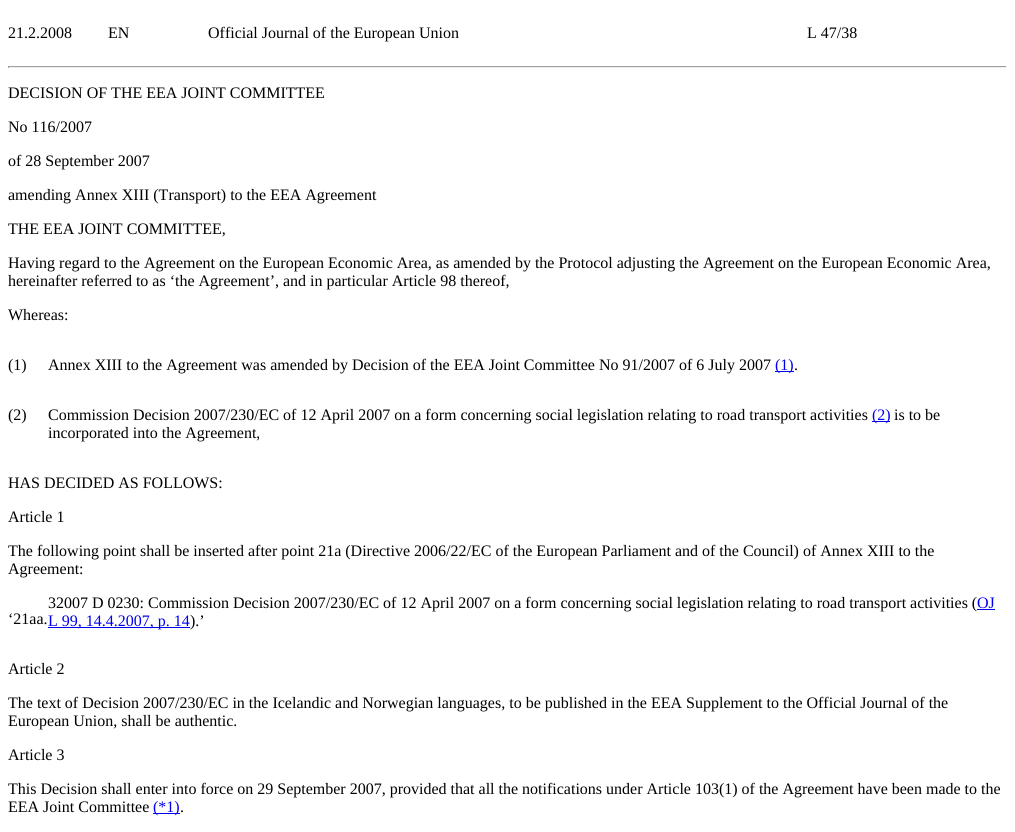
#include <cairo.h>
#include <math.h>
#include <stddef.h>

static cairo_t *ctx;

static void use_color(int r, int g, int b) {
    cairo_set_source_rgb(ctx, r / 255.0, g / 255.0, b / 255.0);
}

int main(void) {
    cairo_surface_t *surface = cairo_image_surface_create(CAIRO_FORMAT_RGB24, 1015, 832);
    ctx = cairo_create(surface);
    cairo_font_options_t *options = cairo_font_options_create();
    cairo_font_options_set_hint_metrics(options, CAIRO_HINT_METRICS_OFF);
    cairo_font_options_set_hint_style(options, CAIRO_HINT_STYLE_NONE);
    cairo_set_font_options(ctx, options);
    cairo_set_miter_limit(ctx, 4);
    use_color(255, 255, 255);
    cairo_paint(ctx);
    cairo_select_font_face(ctx, "Liberation Serif", CAIRO_FONT_SLANT_NORMAL, CAIRO_FONT_WEIGHT_NORMAL);
    cairo_set_font_size(ctx, 16);
    use_color(0, 0, 0);
    cairo_move_to(ctx, 8, 38);
    cairo_show_text(ctx, "21.2.2008");
    cairo_move_to(ctx, 108, 38);
    cairo_show_text(ctx, "EN");
    cairo_move_to(ctx, 208, 38);
    cairo_show_text(ctx, "Official Journal of the European Union");
    cairo_move_to(ctx, 807, 38);
    cairo_show_text(ctx, "L 47/38");
    use_color(159, 159, 159);
    cairo_rectangle(ctx, 8, 66, 999, 1);
    cairo_fill(ctx);
    use_color(238, 238, 238);
    cairo_rectangle(ctx, 1006, 66, 1, 2);
    cairo_fill(ctx);
    cairo_rectangle(ctx, 8, 67, 999, 1);
    cairo_fill(ctx);
    use_color(159, 159, 159);
    cairo_rectangle(ctx, 8, 66, 1, 2);
    cairo_fill(ctx);
    use_color(0, 0, 0);
    cairo_move_to(ctx, 8, 98);
    cairo_show_text(ctx, "DECISION OF THE EEA JOINT COMMITTEE");
    cairo_move_to(ctx, 8, 132);
    cairo_show_text(ctx, "No 116/2007");
    cairo_move_to(ctx, 8, 166);
    cairo_show_text(ctx, "of 28 September 2007");
    cairo_move_to(ctx, 8, 200);
    cairo_show_text(ctx, "amending Annex XIII (Transport) to the EEA Agreement");
    cairo_move_to(ctx, 8, 234);
    cairo_show_text(ctx, "THE EEA JOINT COMMITTEE,");
    cairo_move_to(ctx, 8, 268);
    cairo_show_text(ctx, "Having regard to the Agreement on the European Economic Area, as amended by the Protocol adjusting the Agreement on the European Economic Area,");
    cairo_move_to(ctx, 8, 286);
    cairo_show_text(ctx, "hereinafter referred to as ‘the Agreement’, and in particular Article 98 thereof,");
    cairo_move_to(ctx, 8, 320);
    cairo_show_text(ctx, "Whereas:");
    cairo_move_to(ctx, 8, 370);
    cairo_show_text(ctx, "(1)");
    cairo_move_to(ctx, 48, 370);
    cairo_show_text(ctx, "Annex XIII to the Agreement was amended by Decision of the EEA Joint Committee No 91/2007 of 6 July 2007");
    use_color(0, 0, 238);
    cairo_rectangle(ctx, 775, 371, 19, 1);
    cairo_fill(ctx);
    cairo_move_to(ctx, 775, 370);
    cairo_show_text(ctx, "(1)");
    use_color(0, 0, 0);
    cairo_move_to(ctx, 794, 370);
    cairo_show_text(ctx, ".");
    cairo_move_to(ctx, 8, 420);
    cairo_show_text(ctx, "(2)");
    cairo_move_to(ctx, 48, 420);
    cairo_show_text(ctx, "Commission Decision 2007/230/EC of 12 April 2007 on a form concerning social legislation relating to road transport activities");
    use_color(0, 0, 238);
    cairo_rectangle(ctx, 872, 421, 18, 1);
    cairo_fill(ctx);
    cairo_move_to(ctx, 872, 420);
    cairo_show_text(ctx, "(2)");
    use_color(0, 0, 0);
    cairo_move_to(ctx, 894, 420);
    cairo_show_text(ctx, "is to be");
    cairo_move_to(ctx, 48, 438);
    cairo_show_text(ctx, "incorporated into the Agreement,");
    cairo_move_to(ctx, 8, 488);
    cairo_show_text(ctx, "HAS DECIDED AS FOLLOWS:");
    cairo_move_to(ctx, 8, 522);
    cairo_show_text(ctx, "Article 1");
    cairo_move_to(ctx, 8, 556);
    cairo_show_text(ctx, "The following point shall be inserted after point 21a (Directive 2006/22/EC of the European Parliament and of the Council) of Annex XIII to the");
    cairo_move_to(ctx, 8, 574);
    cairo_show_text(ctx, "Agreement:");
    cairo_move_to(ctx, 8, 624);
    cairo_show_text(ctx, "‘21aa.");
    cairo_move_to(ctx, 48, 608);
    cairo_show_text(ctx, "32007 D 0230: Commission Decision 2007/230/EC of 12 April 2007 on a form concerning social legislation relating to road transport activities (");
    use_color(0, 0, 238);
    cairo_rectangle(ctx, 977, 609, 18, 1);
    cairo_fill(ctx);
    cairo_move_to(ctx, 977, 608);
    cairo_show_text(ctx, "OJ");
    cairo_rectangle(ctx, 48, 627, 142, 1);
    cairo_fill(ctx);
    cairo_move_to(ctx, 48, 626);
    cairo_show_text(ctx, "L 99, 14.4.2007, p. 14");
    use_color(0, 0, 0);
    cairo_move_to(ctx, 190, 626);
    cairo_show_text(ctx, ").’");
    cairo_move_to(ctx, 8, 674);
    cairo_show_text(ctx, "Article 2");
    cairo_move_to(ctx, 8, 708);
    cairo_show_text(ctx, "The text of Decision 2007/230/EC in the Icelandic and Norwegian languages, to be published in the EEA Supplement to the Official Journal of the");
    cairo_move_to(ctx, 8, 726);
    cairo_show_text(ctx, "European Union, shall be authentic.");
    cairo_move_to(ctx, 8, 760);
    cairo_show_text(ctx, "Article 3");
    cairo_move_to(ctx, 8, 794);
    cairo_show_text(ctx, "This Decision shall enter into force on 29 September 2007, provided that all the notifications under Article 103(1) of the Agreement have been made to the");
    cairo_move_to(ctx, 8, 812);
    cairo_show_text(ctx, "EEA Joint Committee");
    use_color(0, 0, 238);
    cairo_rectangle(ctx, 153, 813, 27, 1);
    cairo_fill(ctx);
    cairo_move_to(ctx, 153, 812);
    cairo_show_text(ctx, "(*1)");
    use_color(0, 0, 0);
    cairo_move_to(ctx, 180, 812);
    cairo_show_text(ctx, ".");
    cairo_surface_write_to_png(surface, "result.png");
    cairo_font_options_destroy(options);
    cairo_destroy(ctx);
    cairo_surface_destroy(surface);
    return 0;
}
